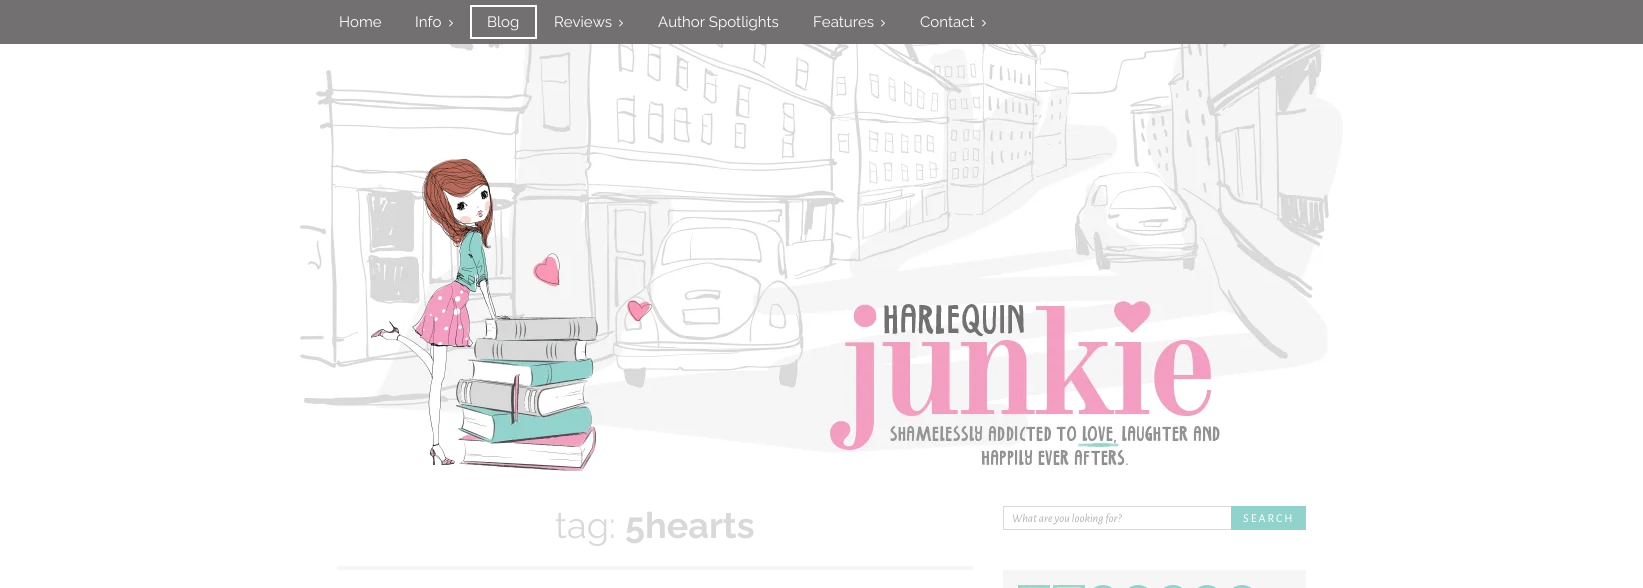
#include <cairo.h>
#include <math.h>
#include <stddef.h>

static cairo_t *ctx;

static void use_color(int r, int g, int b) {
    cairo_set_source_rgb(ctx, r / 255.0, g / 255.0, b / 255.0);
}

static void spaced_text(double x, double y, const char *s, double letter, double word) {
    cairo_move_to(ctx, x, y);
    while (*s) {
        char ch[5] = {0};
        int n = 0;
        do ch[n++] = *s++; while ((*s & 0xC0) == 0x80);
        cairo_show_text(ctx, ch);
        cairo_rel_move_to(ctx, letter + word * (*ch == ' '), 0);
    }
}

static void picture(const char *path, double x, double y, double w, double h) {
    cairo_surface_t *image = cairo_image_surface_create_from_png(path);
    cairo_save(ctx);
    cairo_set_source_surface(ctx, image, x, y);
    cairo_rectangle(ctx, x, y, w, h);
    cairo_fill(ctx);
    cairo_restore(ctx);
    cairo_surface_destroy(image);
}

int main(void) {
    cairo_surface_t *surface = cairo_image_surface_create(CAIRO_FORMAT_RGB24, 1643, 588);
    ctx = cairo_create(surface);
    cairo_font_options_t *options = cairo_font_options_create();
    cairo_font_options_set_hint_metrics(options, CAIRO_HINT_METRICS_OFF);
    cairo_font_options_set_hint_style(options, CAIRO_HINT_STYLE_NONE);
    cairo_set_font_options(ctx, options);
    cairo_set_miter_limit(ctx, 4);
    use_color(255, 255, 255);
    cairo_paint(ctx);
    use_color(115, 112, 113);
    cairo_rectangle(ctx, 0, 0, 1643, 44);
    cairo_fill(ctx);
    cairo_select_font_face(ctx, "Raleway", CAIRO_FONT_SLANT_NORMAL, CAIRO_FONT_WEIGHT_NORMAL);
    cairo_set_font_size(ctx, 15);
    use_color(255, 255, 255);
    cairo_move_to(ctx, 339, 27);
    cairo_show_text(ctx, "Home");
    cairo_move_to(ctx, 415, 27);
    cairo_show_text(ctx, "Info");
    picture("img1.png", 449, 19, 4, 8);
    cairo_rectangle(ctx, 471, 6, 65, 32);
    cairo_stroke(ctx);
    cairo_move_to(ctx, 487, 27);
    cairo_show_text(ctx, "Blog");
    cairo_move_to(ctx, 554, 27);
    cairo_show_text(ctx, "Reviews");
    picture("img1.png", 619, 19, 4, 8);
    cairo_move_to(ctx, 658, 27);
    cairo_show_text(ctx, "Author Spotlights");
    cairo_move_to(ctx, 813, 27);
    cairo_show_text(ctx, "Features");
    picture("img1.png", 881, 19, 4, 8);
    cairo_move_to(ctx, 920, 27);
    cairo_show_text(ctx, "Contact");
    picture("img1.png", 982, 19, 4, 8);
    picture("img2.png", 300, 44, 1043, 427);
    cairo_set_font_size(ctx, 36);
    use_color(217, 217, 217);
    cairo_move_to(ctx, 555, 538);
    cairo_show_text(ctx, "tag:");
    cairo_select_font_face(ctx, "Raleway", CAIRO_FONT_SLANT_NORMAL, CAIRO_FONT_WEIGHT_BOLD);
    cairo_move_to(ctx, 625, 538);
    cairo_show_text(ctx, "5hearts");
    use_color(246, 246, 246);
    cairo_rectangle(ctx, 337, 566, 636, 4);
    cairo_fill(ctx);
    cairo_rectangle(ctx, 1003.5, 506.5, 228, 23);
    use_color(217, 217, 217);
    cairo_set_line_width(ctx, 1);
    cairo_stroke(ctx);
    cairo_select_font_face(ctx, "Alegreya Sans", CAIRO_FONT_SLANT_ITALIC, CAIRO_FONT_WEIGHT_NORMAL);
    cairo_set_font_size(ctx, 12);
    use_color(179, 179, 179);
    cairo_move_to(ctx, 1012, 522);
    cairo_show_text(ctx, "What are you looking for?");
    use_color(145, 211, 204);
    cairo_rectangle(ctx, 1231, 506, 75, 24);
    cairo_fill(ctx);
    cairo_select_font_face(ctx, "Alegreya Sans", CAIRO_FONT_SLANT_NORMAL, CAIRO_FONT_WEIGHT_NORMAL);
    use_color(255, 255, 255);
    spaced_text(1243, 522, "SEARCH", 2, 0);
    use_color(246, 246, 246);
    cairo_rectangle(ctx, 1003, 570, 303, 18);
    cairo_fill(ctx);
    picture("img3.png", 1018, 585, 32, 3);
    picture("img4.png", 1053, 585, 32, 3);
    picture("img5.png", 1094, 585, 18, 3);
    picture("img6.png", 1129, 585, 18, 3);
    picture("img7.png", 1164, 585, 18, 3);
    picture("img8.png", 1198, 585, 18, 3);
    picture("img9.png", 1233, 585, 18, 3);
    cairo_surface_write_to_png(surface, "result.png");
    cairo_font_options_destroy(options);
    cairo_destroy(ctx);
    cairo_surface_destroy(surface);
    return 0;
}
